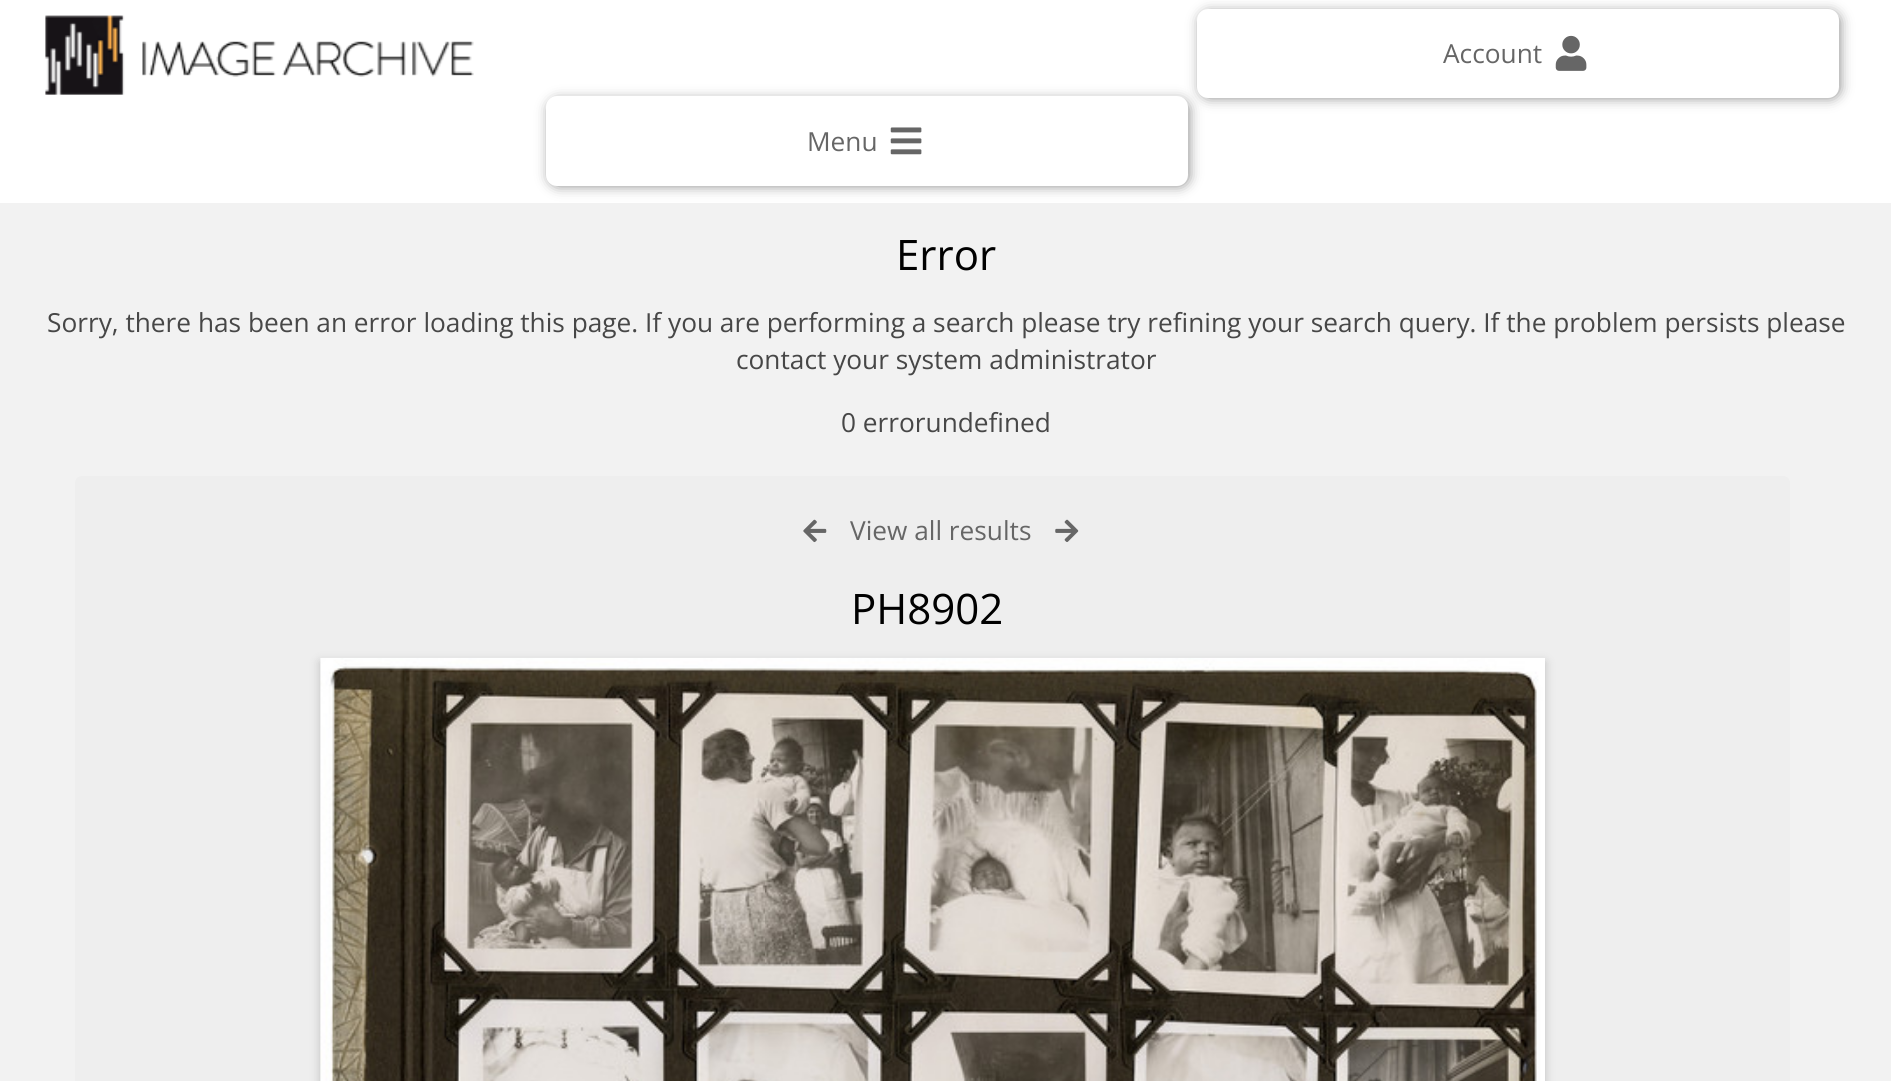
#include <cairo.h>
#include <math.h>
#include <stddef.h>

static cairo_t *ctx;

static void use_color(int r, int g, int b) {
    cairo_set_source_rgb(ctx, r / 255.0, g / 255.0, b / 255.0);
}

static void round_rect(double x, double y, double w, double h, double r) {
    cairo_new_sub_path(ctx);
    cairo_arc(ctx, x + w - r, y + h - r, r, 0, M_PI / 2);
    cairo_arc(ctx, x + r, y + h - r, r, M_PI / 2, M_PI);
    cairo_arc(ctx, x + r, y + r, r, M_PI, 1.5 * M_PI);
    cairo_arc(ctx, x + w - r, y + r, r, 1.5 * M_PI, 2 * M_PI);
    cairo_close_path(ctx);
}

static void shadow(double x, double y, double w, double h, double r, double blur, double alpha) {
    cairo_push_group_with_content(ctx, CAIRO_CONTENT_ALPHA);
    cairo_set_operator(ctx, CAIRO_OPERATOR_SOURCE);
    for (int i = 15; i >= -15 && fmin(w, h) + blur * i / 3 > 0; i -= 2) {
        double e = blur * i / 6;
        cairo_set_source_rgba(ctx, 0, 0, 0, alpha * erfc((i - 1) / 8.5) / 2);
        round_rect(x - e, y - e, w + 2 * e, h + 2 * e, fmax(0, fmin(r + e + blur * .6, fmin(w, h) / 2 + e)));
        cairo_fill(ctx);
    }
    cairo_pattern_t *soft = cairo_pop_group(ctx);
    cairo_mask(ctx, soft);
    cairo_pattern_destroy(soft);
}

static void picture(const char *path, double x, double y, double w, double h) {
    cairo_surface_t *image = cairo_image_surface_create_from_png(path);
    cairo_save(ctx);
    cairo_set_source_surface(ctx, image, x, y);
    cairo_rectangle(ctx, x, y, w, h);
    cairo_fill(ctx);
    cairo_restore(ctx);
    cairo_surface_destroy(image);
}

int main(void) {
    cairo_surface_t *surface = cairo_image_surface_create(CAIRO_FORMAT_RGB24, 1891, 1081);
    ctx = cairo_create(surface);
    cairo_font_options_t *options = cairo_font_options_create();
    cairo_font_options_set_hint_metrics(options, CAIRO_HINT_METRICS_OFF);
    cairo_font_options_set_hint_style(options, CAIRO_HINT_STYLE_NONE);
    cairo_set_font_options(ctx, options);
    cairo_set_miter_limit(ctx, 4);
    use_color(242, 242, 242);
    cairo_paint(ctx);
    use_color(255, 255, 255);
    cairo_rectangle(ctx, 0, 0, 1891, 203);
    cairo_fill(ctx);
    picture("img1.png", 45, 15, 429, 80);
    use_color(102, 102, 102);
    shadow(1202, 14, 636, 82, 7, 7, 1);
    use_color(255, 255, 255);
    round_rect(1197, 9, 642, 89, 11);
    cairo_fill(ctx);
    cairo_select_font_face(ctx, "Open Sans", CAIRO_FONT_SLANT_NORMAL, CAIRO_FONT_WEIGHT_NORMAL);
    cairo_set_font_size(ctx, 26.25);
    use_color(102, 102, 102);
    cairo_move_to(ctx, 1443, 63);
    cairo_show_text(ctx, "Account");
    picture("img2.png", 1555, 35, 32, 36);
    use_color(102, 102, 102);
    shadow(551, 102, 636, 82, 7, 7, 1);
    use_color(255, 255, 255);
    round_rect(546, 96, 642, 90, 11);
    cairo_fill(ctx);
    use_color(102, 102, 102);
    cairo_move_to(ctx, 807, 151);
    cairo_show_text(ctx, "Menu");
    picture("img3.png", 890, 127, 32, 28);
    cairo_set_font_size(ctx, 42);
    use_color(0, 0, 0);
    cairo_move_to(ctx, 896, 270);
    cairo_show_text(ctx, "Error");
    cairo_set_font_size(ctx, 26.25);
    use_color(71, 71, 71);
    cairo_move_to(ctx, 47, 332);
    cairo_show_text(ctx, "Sorry, there has been an error loading this page. If you are performing a search please try refining your search query. If the problem persists please");
    cairo_move_to(ctx, 736, 369);
    cairo_show_text(ctx, "contact your system administrator");
    cairo_move_to(ctx, 841, 432);
    cairo_show_text(ctx, "0 errorundefined");
    use_color(238, 238, 238);
    round_rect(75, 476, 1715, 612, 7);
    cairo_fill(ctx);
    picture("img4.png", 803, 519, 24, 24);
    use_color(102, 102, 102);
    cairo_move_to(ctx, 850, 540);
    cairo_show_text(ctx, "View all results");
    picture("img5.png", 1055, 519, 24, 23);
    cairo_set_font_size(ctx, 42);
    use_color(0, 0, 0);
    cairo_move_to(ctx, 851, 624);
    cairo_show_text(ctx, "PH8902");
    use_color(0, 0, 0);
    shadow(320, 662, 1225, 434, 0, 5, 0.2);
    picture("img6.png", 320, 658, 1225, 423);
    cairo_surface_write_to_png(surface, "result.png");
    cairo_font_options_destroy(options);
    cairo_destroy(ctx);
    cairo_surface_destroy(surface);
    return 0;
}
